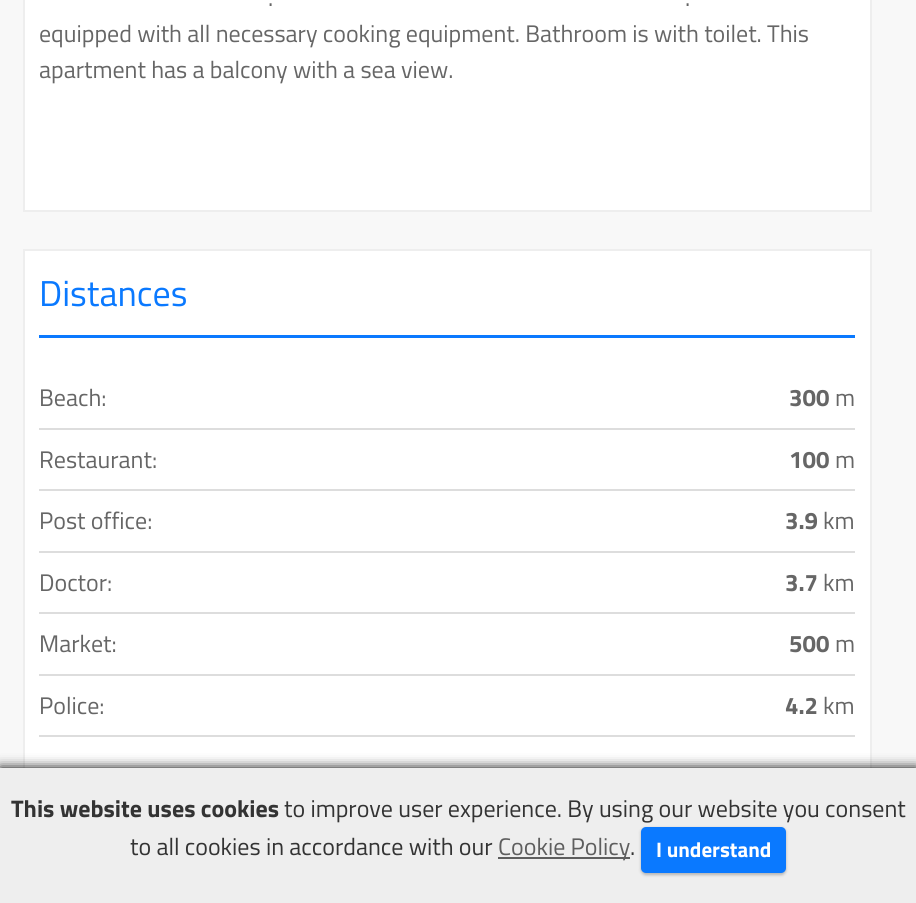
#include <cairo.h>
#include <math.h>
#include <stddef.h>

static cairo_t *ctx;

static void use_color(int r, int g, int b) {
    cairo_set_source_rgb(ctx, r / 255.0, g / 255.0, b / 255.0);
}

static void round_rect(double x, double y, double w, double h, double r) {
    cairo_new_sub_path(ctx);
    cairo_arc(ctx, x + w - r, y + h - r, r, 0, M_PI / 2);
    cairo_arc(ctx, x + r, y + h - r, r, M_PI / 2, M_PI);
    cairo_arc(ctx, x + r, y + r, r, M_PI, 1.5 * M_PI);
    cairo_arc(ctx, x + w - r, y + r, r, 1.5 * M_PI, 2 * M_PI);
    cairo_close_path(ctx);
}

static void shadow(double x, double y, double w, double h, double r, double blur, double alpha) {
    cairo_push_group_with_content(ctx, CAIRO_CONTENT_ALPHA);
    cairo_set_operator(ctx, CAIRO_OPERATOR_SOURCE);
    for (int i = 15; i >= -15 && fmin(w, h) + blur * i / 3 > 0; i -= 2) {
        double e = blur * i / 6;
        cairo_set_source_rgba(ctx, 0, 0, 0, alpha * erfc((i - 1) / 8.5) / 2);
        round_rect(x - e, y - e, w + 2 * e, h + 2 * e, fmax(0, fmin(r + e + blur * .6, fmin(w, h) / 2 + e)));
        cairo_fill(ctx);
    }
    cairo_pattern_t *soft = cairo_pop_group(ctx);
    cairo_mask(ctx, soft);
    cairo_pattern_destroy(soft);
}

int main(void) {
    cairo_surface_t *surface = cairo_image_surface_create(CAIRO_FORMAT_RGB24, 916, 903);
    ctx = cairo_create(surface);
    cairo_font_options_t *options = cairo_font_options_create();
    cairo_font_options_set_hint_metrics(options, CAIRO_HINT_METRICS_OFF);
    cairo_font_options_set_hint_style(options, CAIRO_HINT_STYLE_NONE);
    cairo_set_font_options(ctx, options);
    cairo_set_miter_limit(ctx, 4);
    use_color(248, 248, 248);
    cairo_paint(ctx);
    use_color(255, 255, 255);
    cairo_rectangle(ctx, 24, -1, 847, 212);
    cairo_fill_preserve(ctx);
    use_color(238, 238, 238);
    cairo_stroke(ctx);
    cairo_select_font_face(ctx, "Titillium Web", CAIRO_FONT_SLANT_NORMAL, CAIRO_FONT_WEIGHT_NORMAL);
    cairo_set_font_size(ctx, 24);
    use_color(102, 102, 102);
    cairo_move_to(ctx, 268, 6);
    cairo_show_text(ctx, ".");
    cairo_move_to(ctx, 685, 6);
    cairo_show_text(ctx, ".");
    cairo_move_to(ctx, 39, 42);
    cairo_show_text(ctx, "equipped with all necessary cooking equipment. Bathroom is with toilet. This");
    cairo_move_to(ctx, 39, 78);
    cairo_show_text(ctx, "apartment has a balcony with a sea view.");
    use_color(255, 255, 255);
    cairo_rectangle(ctx, 25, 251, 845, 517);
    cairo_fill(ctx);
    cairo_rectangle(ctx, 24, 250, 847, 562);
    use_color(238, 238, 238);
    cairo_stroke(ctx);
    cairo_set_font_size(ctx, 36);
    use_color(10, 121, 255);
    cairo_move_to(ctx, 39, 306);
    cairo_show_text(ctx, "Distances");
    cairo_rectangle(ctx, 39, 335, 816, 3);
    cairo_fill(ctx);
    cairo_set_font_size(ctx, 24);
    use_color(102, 102, 102);
    cairo_move_to(ctx, 39, 406);
    cairo_show_text(ctx, "Beach:");
    cairo_select_font_face(ctx, "Titillium Web", CAIRO_FONT_SLANT_NORMAL, CAIRO_FONT_WEIGHT_BOLD);
    cairo_move_to(ctx, 789, 406);
    cairo_show_text(ctx, "300");
    cairo_select_font_face(ctx, "Titillium Web", CAIRO_FONT_SLANT_NORMAL, CAIRO_FONT_WEIGHT_NORMAL);
    cairo_move_to(ctx, 835, 406);
    cairo_show_text(ctx, "m");
    cairo_move_to(ctx, 39, 468);
    cairo_show_text(ctx, "Restaurant:");
    use_color(221, 221, 221);
    cairo_rectangle(ctx, 39, 428, 816, 2);
    cairo_fill(ctx);
    cairo_select_font_face(ctx, "Titillium Web", CAIRO_FONT_SLANT_NORMAL, CAIRO_FONT_WEIGHT_BOLD);
    use_color(102, 102, 102);
    cairo_move_to(ctx, 789, 468);
    cairo_show_text(ctx, "100");
    cairo_select_font_face(ctx, "Titillium Web", CAIRO_FONT_SLANT_NORMAL, CAIRO_FONT_WEIGHT_NORMAL);
    cairo_move_to(ctx, 835, 468);
    cairo_show_text(ctx, "m");
    cairo_move_to(ctx, 39, 529);
    cairo_show_text(ctx, "Post office:");
    use_color(221, 221, 221);
    cairo_rectangle(ctx, 39, 489, 816, 2);
    cairo_fill(ctx);
    cairo_select_font_face(ctx, "Titillium Web", CAIRO_FONT_SLANT_NORMAL, CAIRO_FONT_WEIGHT_BOLD);
    use_color(102, 102, 102);
    cairo_move_to(ctx, 785, 529);
    cairo_show_text(ctx, "3.9");
    cairo_select_font_face(ctx, "Titillium Web", CAIRO_FONT_SLANT_NORMAL, CAIRO_FONT_WEIGHT_NORMAL);
    cairo_move_to(ctx, 823, 529);
    cairo_show_text(ctx, "km");
    cairo_move_to(ctx, 39, 591);
    cairo_show_text(ctx, "Doctor:");
    use_color(221, 221, 221);
    cairo_rectangle(ctx, 39, 551, 816, 2);
    cairo_fill(ctx);
    cairo_select_font_face(ctx, "Titillium Web", CAIRO_FONT_SLANT_NORMAL, CAIRO_FONT_WEIGHT_BOLD);
    use_color(102, 102, 102);
    cairo_move_to(ctx, 785, 591);
    cairo_show_text(ctx, "3.7");
    cairo_select_font_face(ctx, "Titillium Web", CAIRO_FONT_SLANT_NORMAL, CAIRO_FONT_WEIGHT_NORMAL);
    cairo_move_to(ctx, 823, 591);
    cairo_show_text(ctx, "km");
    cairo_move_to(ctx, 39, 652);
    cairo_show_text(ctx, "Market:");
    use_color(221, 221, 221);
    cairo_rectangle(ctx, 39, 612, 816, 2);
    cairo_fill(ctx);
    cairo_select_font_face(ctx, "Titillium Web", CAIRO_FONT_SLANT_NORMAL, CAIRO_FONT_WEIGHT_BOLD);
    use_color(102, 102, 102);
    cairo_move_to(ctx, 789, 652);
    cairo_show_text(ctx, "500");
    cairo_select_font_face(ctx, "Titillium Web", CAIRO_FONT_SLANT_NORMAL, CAIRO_FONT_WEIGHT_NORMAL);
    cairo_move_to(ctx, 835, 652);
    cairo_show_text(ctx, "m");
    cairo_move_to(ctx, 39, 714);
    cairo_show_text(ctx, "Police:");
    use_color(221, 221, 221);
    cairo_rectangle(ctx, 39, 674, 816, 2);
    cairo_fill(ctx);
    cairo_select_font_face(ctx, "Titillium Web", CAIRO_FONT_SLANT_NORMAL, CAIRO_FONT_WEIGHT_BOLD);
    use_color(102, 102, 102);
    cairo_move_to(ctx, 785, 714);
    cairo_show_text(ctx, "4.2");
    cairo_select_font_face(ctx, "Titillium Web", CAIRO_FONT_SLANT_NORMAL, CAIRO_FONT_WEIGHT_NORMAL);
    cairo_move_to(ctx, 823, 714);
    cairo_show_text(ctx, "km");
    use_color(221, 221, 221);
    cairo_rectangle(ctx, 39, 735, 816, 2);
    cairo_fill(ctx);
    use_color(0, 0, 0);
    shadow(0, 768, 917, 135, 0, 6, 1);
    use_color(238, 238, 238);
    cairo_rectangle(ctx, 0, 768, 916, 135);
    cairo_fill(ctx);
    cairo_select_font_face(ctx, "Titillium Web", CAIRO_FONT_SLANT_NORMAL, CAIRO_FONT_WEIGHT_BOLD);
    use_color(51, 51, 51);
    cairo_move_to(ctx, 11, 817);
    cairo_show_text(ctx, "This website uses cookies");
    cairo_select_font_face(ctx, "Titillium Web", CAIRO_FONT_SLANT_NORMAL, CAIRO_FONT_WEIGHT_NORMAL);
    cairo_move_to(ctx, 284, 817);
    cairo_show_text(ctx, "to improve user experience. By using our website you consent");
    cairo_move_to(ctx, 130, 855);
    cairo_show_text(ctx, "to all cookies in accordance with our");
    use_color(94, 94, 94);
    cairo_rectangle(ctx, 498, 857, 132, 2);
    cairo_fill(ctx);
    cairo_move_to(ctx, 498, 855);
    cairo_show_text(ctx, "Cookie Policy");
    use_color(51, 51, 51);
    cairo_move_to(ctx, 630, 855);
    cairo_show_text(ctx, ".");
    use_color(0, 0, 0);
    shadow(641, 828, 145, 47, 5, 1.5, 0.25);
    use_color(10, 121, 255);
    round_rect(641, 827, 145, 46, 5);
    cairo_fill(ctx);
    cairo_select_font_face(ctx, "Titillium Web", CAIRO_FONT_SLANT_NORMAL, CAIRO_FONT_WEIGHT_BOLD);
    cairo_set_font_size(ctx, 21);
    use_color(255, 255, 255);
    cairo_move_to(ctx, 656, 857);
    cairo_show_text(ctx, "I understand");
    cairo_surface_write_to_png(surface, "result.png");
    cairo_font_options_destroy(options);
    cairo_destroy(ctx);
    cairo_surface_destroy(surface);
    return 0;
}
